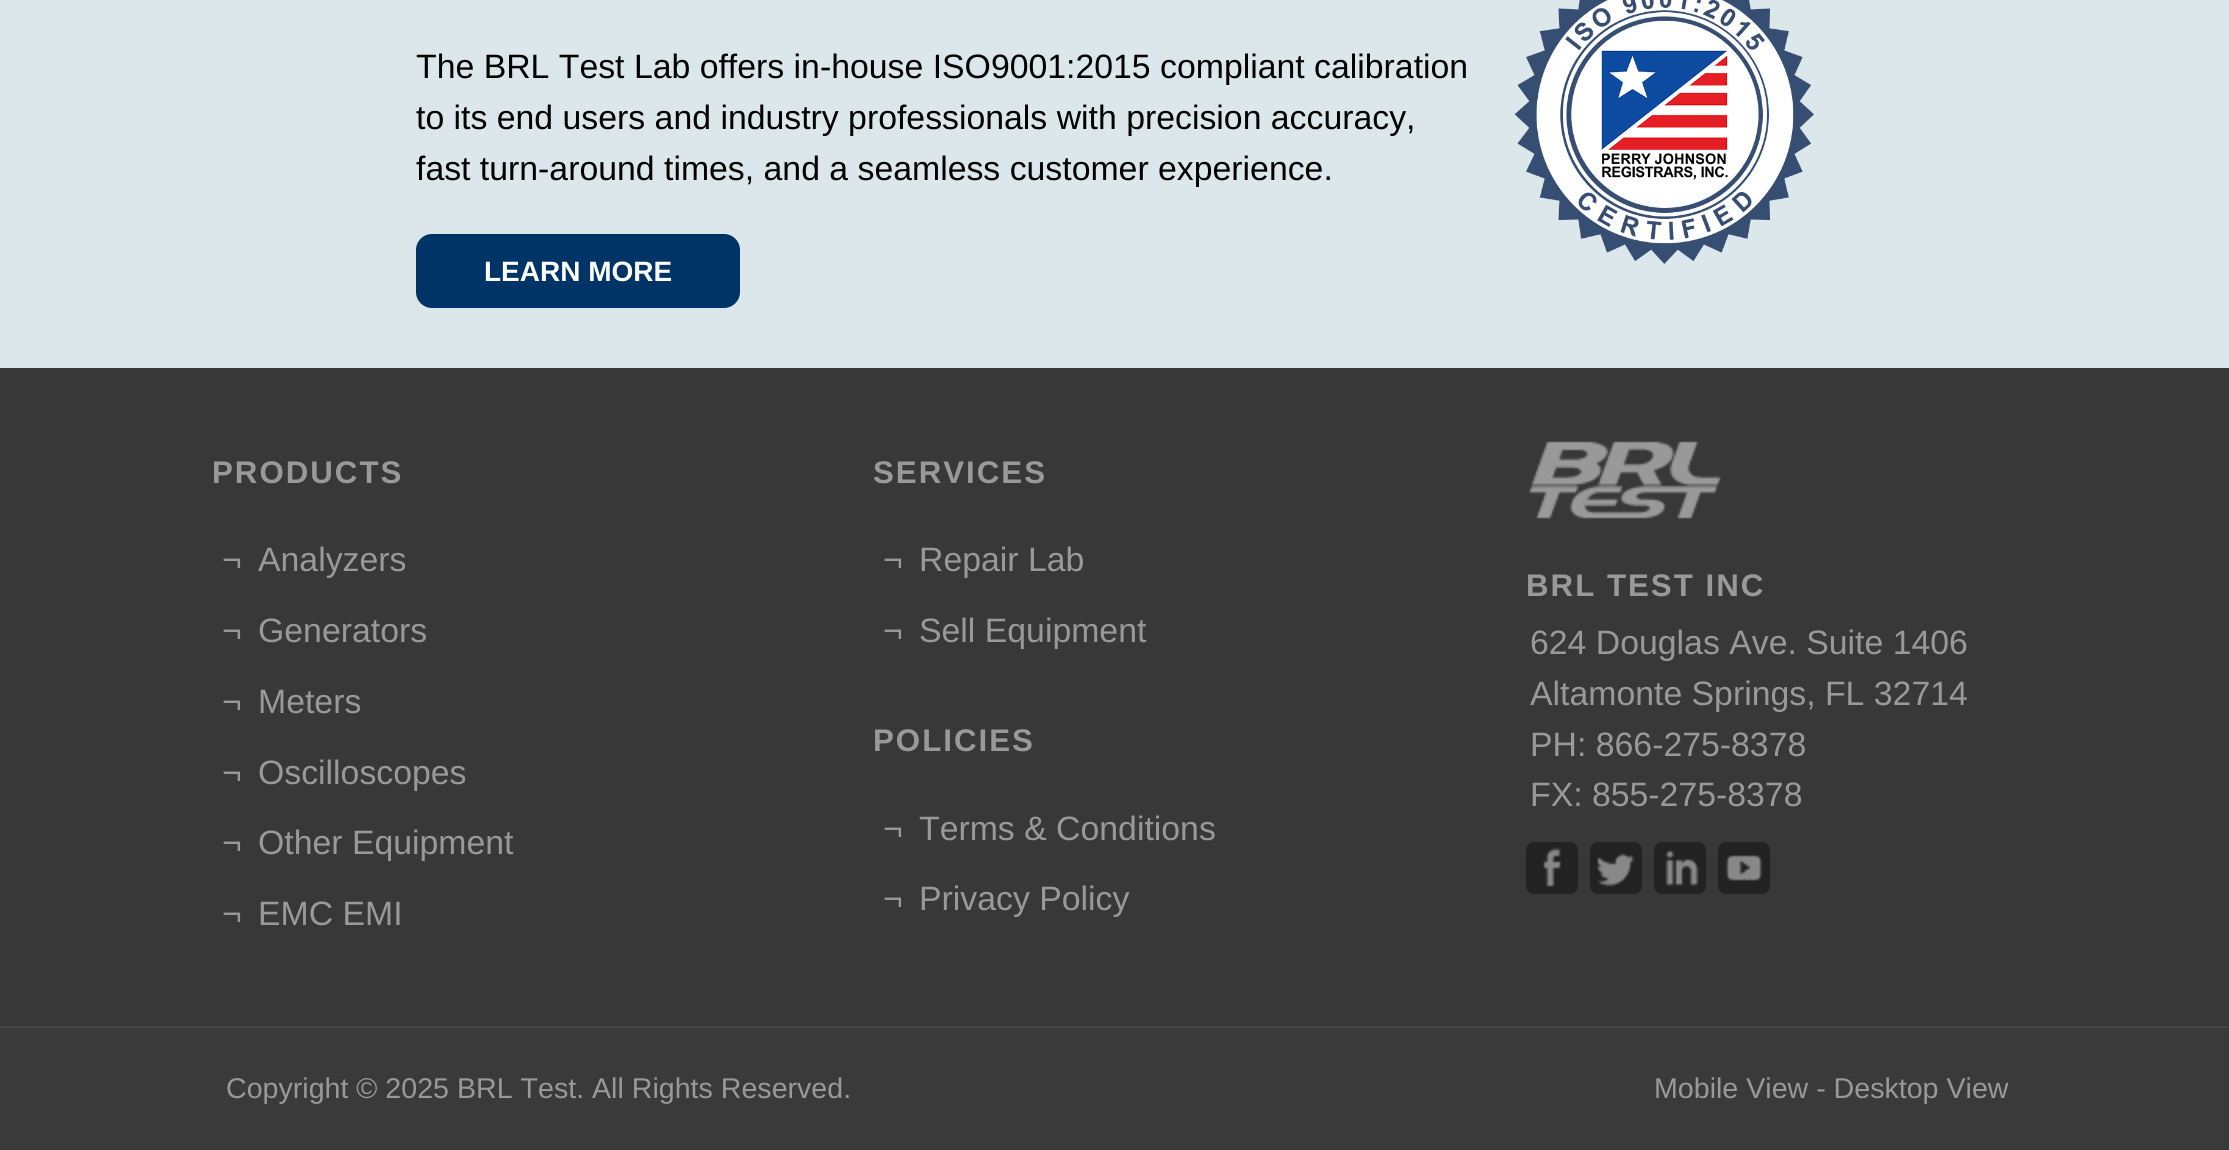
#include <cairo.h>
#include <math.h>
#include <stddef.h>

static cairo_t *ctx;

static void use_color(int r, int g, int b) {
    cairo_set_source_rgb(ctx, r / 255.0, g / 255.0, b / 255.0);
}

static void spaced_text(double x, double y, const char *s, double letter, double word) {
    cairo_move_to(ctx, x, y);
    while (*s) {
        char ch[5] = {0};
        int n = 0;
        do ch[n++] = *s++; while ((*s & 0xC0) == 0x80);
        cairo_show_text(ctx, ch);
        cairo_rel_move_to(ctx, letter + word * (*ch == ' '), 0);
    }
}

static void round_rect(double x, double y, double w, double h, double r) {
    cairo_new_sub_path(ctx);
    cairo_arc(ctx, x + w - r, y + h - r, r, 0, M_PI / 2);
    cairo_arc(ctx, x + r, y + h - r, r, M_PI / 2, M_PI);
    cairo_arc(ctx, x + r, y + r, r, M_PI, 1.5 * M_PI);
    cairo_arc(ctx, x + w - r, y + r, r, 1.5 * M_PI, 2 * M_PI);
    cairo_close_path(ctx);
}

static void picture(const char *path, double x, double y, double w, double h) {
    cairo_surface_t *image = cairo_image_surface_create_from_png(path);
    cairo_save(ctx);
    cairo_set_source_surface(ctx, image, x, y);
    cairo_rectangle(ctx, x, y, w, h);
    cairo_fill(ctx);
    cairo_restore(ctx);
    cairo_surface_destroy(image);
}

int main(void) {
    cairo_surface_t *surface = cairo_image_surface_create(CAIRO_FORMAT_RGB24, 2229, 1150);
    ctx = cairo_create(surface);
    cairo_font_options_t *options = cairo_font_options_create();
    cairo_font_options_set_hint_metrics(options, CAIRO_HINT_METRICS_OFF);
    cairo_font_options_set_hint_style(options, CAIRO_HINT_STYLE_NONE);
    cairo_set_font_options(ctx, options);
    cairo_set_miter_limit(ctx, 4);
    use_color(219, 231, 235);
    cairo_paint(ctx);
    cairo_select_font_face(ctx, "Liberation Sans", CAIRO_FONT_SLANT_NORMAL, CAIRO_FONT_WEIGHT_NORMAL);
    cairo_set_font_size(ctx, 33.8);
    use_color(0, 0, 0);
    cairo_move_to(ctx, 416, 78);
    cairo_show_text(ctx, "The BRL Test Lab offers in-house ISO9001:2015 compliant calibration");
    cairo_move_to(ctx, 416, 129);
    cairo_show_text(ctx, "to its end users and industry professionals with precision accuracy,");
    cairo_move_to(ctx, 416, 180);
    cairo_show_text(ctx, "fast turn-around times, and a seamless customer experience.");
    picture("img1.png", 1514, 0, 300, 264);
    use_color(0, 51, 102);
    round_rect(416, 234, 324, 74, 16);
    cairo_fill(ctx);
    cairo_select_font_face(ctx, "Liberation Sans", CAIRO_FONT_SLANT_NORMAL, CAIRO_FONT_WEIGHT_BOLD);
    cairo_set_font_size(ctx, 28);
    use_color(255, 255, 255);
    cairo_move_to(ctx, 484, 281);
    cairo_show_text(ctx, "LEARN MORE");
    use_color(56, 56, 56);
    cairo_rectangle(ctx, 0, 368, 2229, 658);
    cairo_fill(ctx);
    cairo_set_font_size(ctx, 31.25);
    use_color(153, 153, 153);
    spaced_text(212, 483, "PRODUCTS", 2, 0);
    cairo_select_font_face(ctx, "Liberation Sans", CAIRO_FONT_SLANT_NORMAL, CAIRO_FONT_WEIGHT_NORMAL);
    cairo_set_font_size(ctx, 33.8);
    cairo_move_to(ctx, 222, 571);
    cairo_show_text(ctx, "¬");
    cairo_move_to(ctx, 258, 571);
    cairo_show_text(ctx, "Analyzers");
    cairo_move_to(ctx, 222, 642);
    cairo_show_text(ctx, "¬");
    cairo_move_to(ctx, 258, 642);
    cairo_show_text(ctx, "Generators");
    cairo_move_to(ctx, 222, 713);
    cairo_show_text(ctx, "¬");
    cairo_move_to(ctx, 258, 713);
    cairo_show_text(ctx, "Meters");
    cairo_move_to(ctx, 222, 784);
    cairo_show_text(ctx, "¬");
    cairo_move_to(ctx, 258, 784);
    cairo_show_text(ctx, "Oscilloscopes");
    cairo_move_to(ctx, 222, 854);
    cairo_show_text(ctx, "¬");
    cairo_move_to(ctx, 258, 854);
    cairo_show_text(ctx, "Other Equipment");
    cairo_move_to(ctx, 222, 925);
    cairo_show_text(ctx, "¬");
    cairo_move_to(ctx, 258, 925);
    cairo_show_text(ctx, "EMC EMI");
    cairo_select_font_face(ctx, "Liberation Sans", CAIRO_FONT_SLANT_NORMAL, CAIRO_FONT_WEIGHT_BOLD);
    cairo_set_font_size(ctx, 31.25);
    spaced_text(873, 483, "SERVICES", 2, 0);
    cairo_select_font_face(ctx, "Liberation Sans", CAIRO_FONT_SLANT_NORMAL, CAIRO_FONT_WEIGHT_NORMAL);
    cairo_set_font_size(ctx, 33.8);
    cairo_move_to(ctx, 883, 571);
    cairo_show_text(ctx, "¬");
    cairo_move_to(ctx, 919, 571);
    cairo_show_text(ctx, "Repair Lab");
    cairo_move_to(ctx, 883, 642);
    cairo_show_text(ctx, "¬");
    cairo_move_to(ctx, 919, 642);
    cairo_show_text(ctx, "Sell Equipment");
    cairo_select_font_face(ctx, "Liberation Sans", CAIRO_FONT_SLANT_NORMAL, CAIRO_FONT_WEIGHT_BOLD);
    cairo_set_font_size(ctx, 31.25);
    spaced_text(873, 751, "POLICIES", 2, 0);
    cairo_select_font_face(ctx, "Liberation Sans", CAIRO_FONT_SLANT_NORMAL, CAIRO_FONT_WEIGHT_NORMAL);
    cairo_set_font_size(ctx, 33.8);
    cairo_move_to(ctx, 883, 840);
    cairo_show_text(ctx, "¬");
    cairo_move_to(ctx, 919, 840);
    cairo_show_text(ctx, "Terms & Conditions");
    cairo_move_to(ctx, 883, 910);
    cairo_show_text(ctx, "¬");
    cairo_move_to(ctx, 919, 910);
    cairo_show_text(ctx, "Privacy Policy");
    picture("img2.png", 1529, 441, 192, 78);
    cairo_select_font_face(ctx, "Liberation Sans", CAIRO_FONT_SLANT_NORMAL, CAIRO_FONT_WEIGHT_BOLD);
    cairo_set_font_size(ctx, 31.25);
    spaced_text(1526, 596, "BRL TEST INC", 2, 0);
    cairo_select_font_face(ctx, "Liberation Sans", CAIRO_FONT_SLANT_NORMAL, CAIRO_FONT_WEIGHT_NORMAL);
    cairo_set_font_size(ctx, 33.8);
    cairo_move_to(ctx, 1530, 654);
    cairo_show_text(ctx, "624 Douglas Ave. Suite 1406");
    cairo_move_to(ctx, 1530, 705);
    cairo_show_text(ctx, "Altamonte Springs, FL 32714");
    cairo_move_to(ctx, 1530, 756);
    cairo_show_text(ctx, "PH: 866-275-8378");
    cairo_move_to(ctx, 1530, 806);
    cairo_show_text(ctx, "FX: 855-275-8378");
    use_color(34, 34, 34);
    round_rect(1526, 842, 52, 52, 8);
    cairo_fill(ctx);
    picture("img3.png", 1543, 847, 19, 40);
    round_rect(1590, 842, 52, 52, 8);
    cairo_fill(ctx);
    picture("img4.png", 1597, 853, 38, 34);
    round_rect(1654, 842, 52, 52, 8);
    cairo_fill(ctx);
    picture("img5.png", 1665, 849, 34, 38);
    round_rect(1718, 842, 52, 52, 8);
    cairo_fill(ctx);
    picture("img6.png", 1725, 855, 38, 26);
    use_color(58, 58, 58);
    cairo_rectangle(ctx, 0, 1028, 2229, 122);
    cairo_fill(ctx);
    use_color(68, 68, 68);
    cairo_rectangle(ctx, 0, 1026, 2229, 2);
    cairo_fill(ctx);
    cairo_set_font_size(ctx, 28.6);
    use_color(153, 153, 153);
    cairo_move_to(ctx, 226, 1098);
    cairo_show_text(ctx, "Copyright © 2025 BRL Test. All Rights Reserved.");
    cairo_move_to(ctx, 1654, 1098);
    cairo_show_text(ctx, "Mobile View - Desktop View");
    cairo_surface_write_to_png(surface, "result.png");
    cairo_font_options_destroy(options);
    cairo_destroy(ctx);
    cairo_surface_destroy(surface);
    return 0;
}
